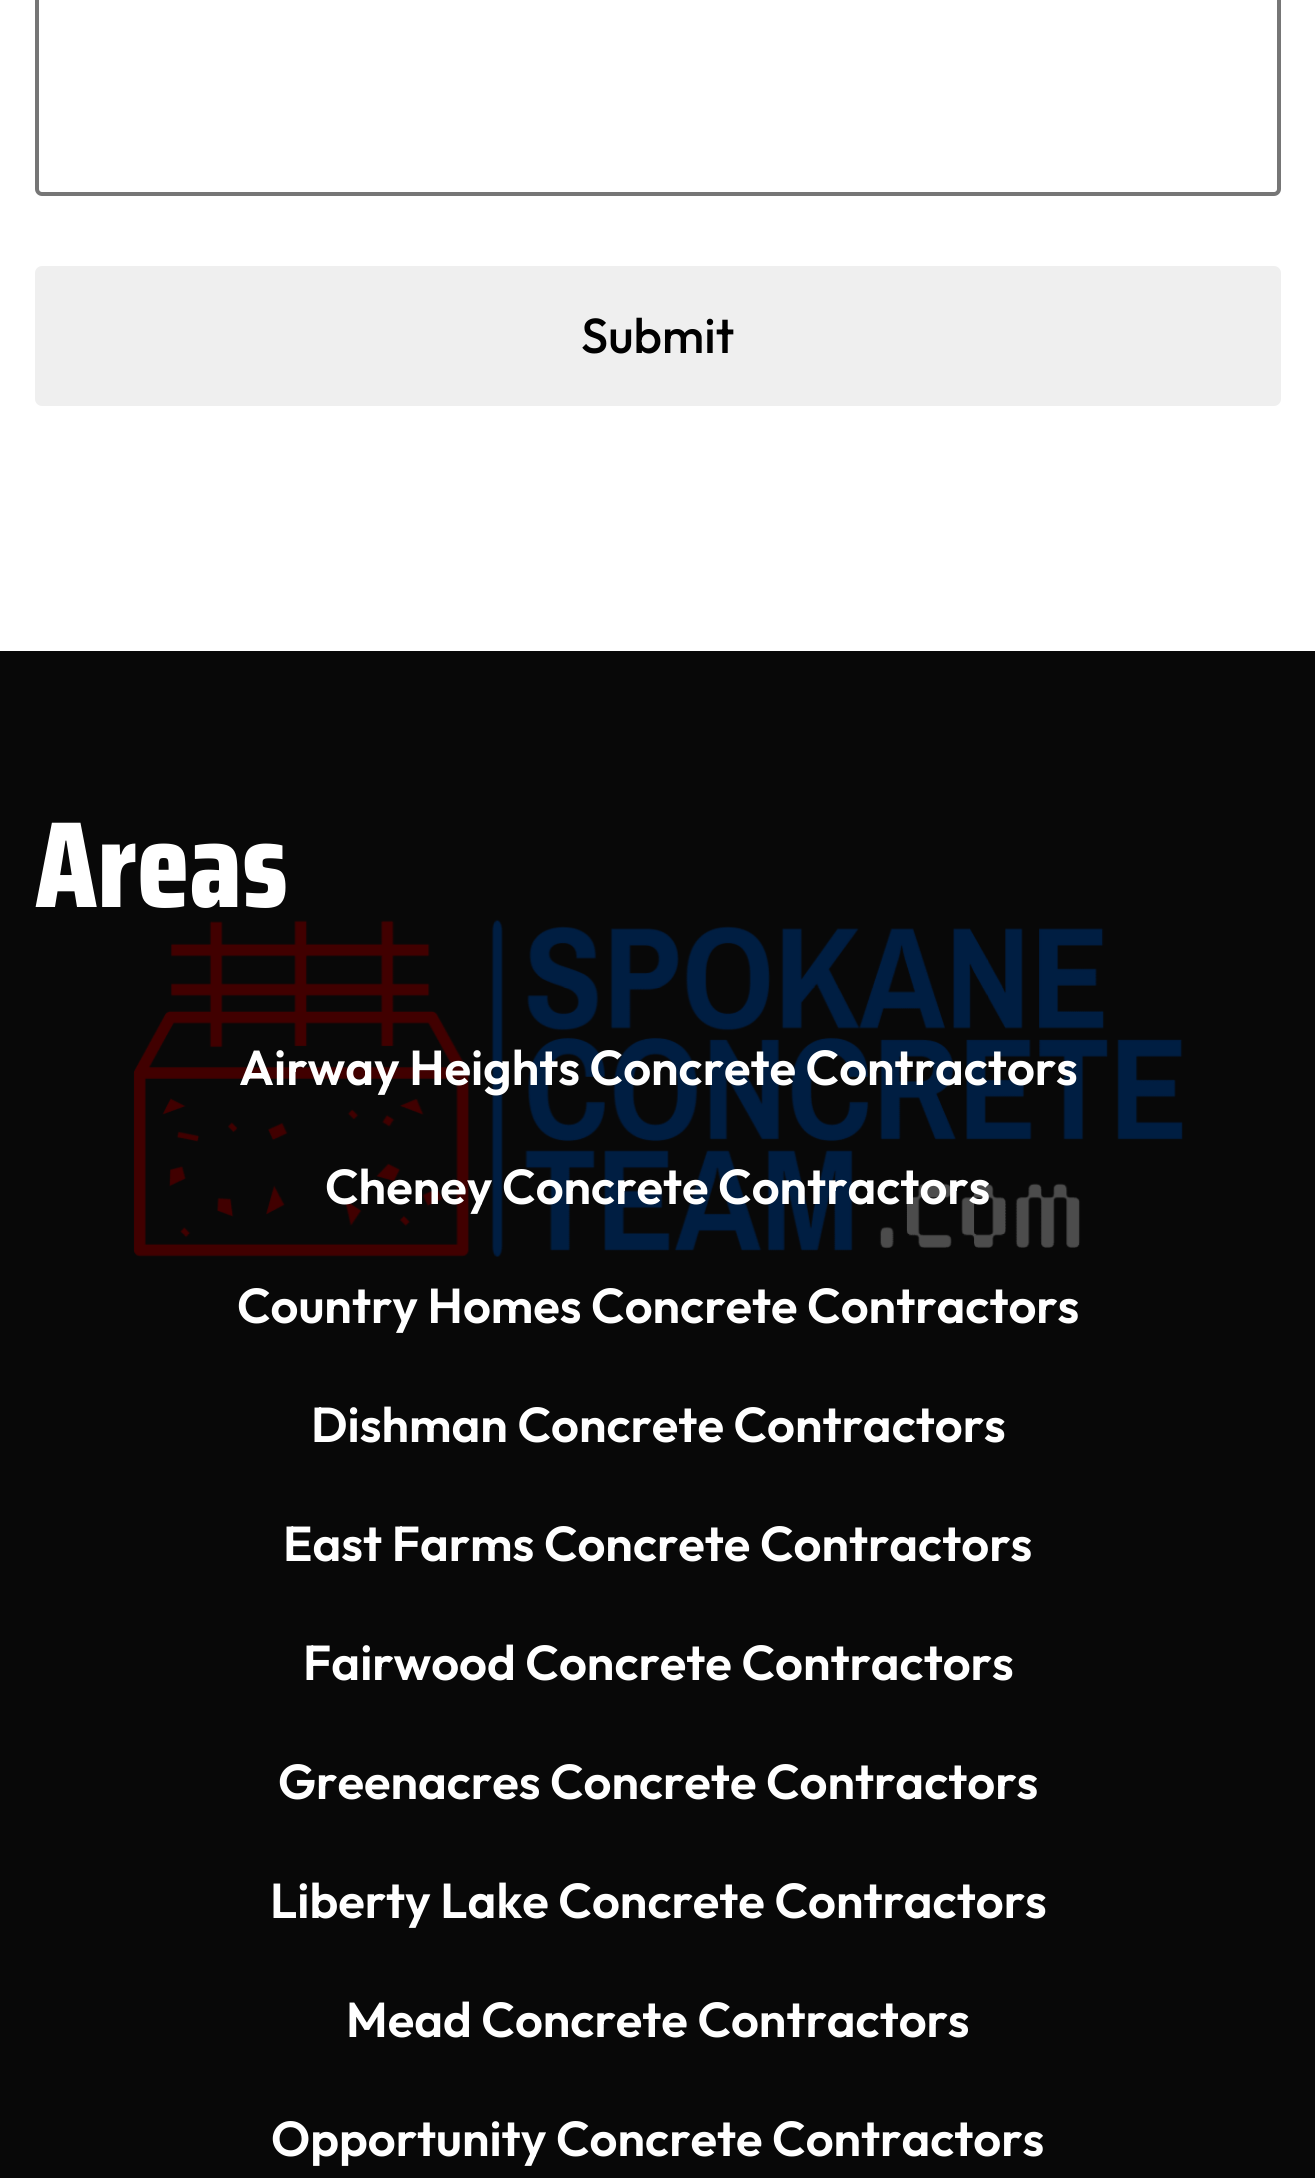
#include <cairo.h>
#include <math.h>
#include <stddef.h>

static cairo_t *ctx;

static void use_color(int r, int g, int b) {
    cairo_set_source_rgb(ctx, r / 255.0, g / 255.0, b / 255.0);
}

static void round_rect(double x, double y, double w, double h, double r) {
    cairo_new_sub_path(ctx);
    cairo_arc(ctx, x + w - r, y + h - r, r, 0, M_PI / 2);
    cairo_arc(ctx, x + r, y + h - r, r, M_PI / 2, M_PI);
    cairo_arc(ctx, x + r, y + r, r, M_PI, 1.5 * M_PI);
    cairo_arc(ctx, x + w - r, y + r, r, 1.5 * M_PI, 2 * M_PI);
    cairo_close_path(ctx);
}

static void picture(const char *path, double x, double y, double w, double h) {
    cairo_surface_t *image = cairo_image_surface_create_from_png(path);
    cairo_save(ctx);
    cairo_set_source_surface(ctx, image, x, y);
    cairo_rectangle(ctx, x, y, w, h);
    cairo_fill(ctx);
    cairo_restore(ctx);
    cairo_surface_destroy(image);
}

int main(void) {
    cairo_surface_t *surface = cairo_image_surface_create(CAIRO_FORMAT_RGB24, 1315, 2178);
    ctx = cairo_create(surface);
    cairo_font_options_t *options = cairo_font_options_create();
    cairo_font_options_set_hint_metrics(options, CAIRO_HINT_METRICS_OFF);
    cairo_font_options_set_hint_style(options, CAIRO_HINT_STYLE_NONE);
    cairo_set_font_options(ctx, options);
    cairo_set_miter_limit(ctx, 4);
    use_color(255, 255, 255);
    cairo_paint(ctx);
    round_rect(37, -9, 1242, 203, 5);
    use_color(118, 118, 118);
    cairo_set_line_width(ctx, 4);
    cairo_stroke(ctx);
    use_color(239, 239, 239);
    round_rect(35, 266, 1246, 140, 7);
    cairo_fill(ctx);
    cairo_select_font_face(ctx, "Outfit Medium", CAIRO_FONT_SLANT_NORMAL, CAIRO_FONT_WEIGHT_NORMAL);
    cairo_set_font_size(ctx, 49);
    use_color(0, 0, 0);
    cairo_move_to(ctx, 581, 353);
    cairo_show_text(ctx, "Submit");
    use_color(8, 8, 8);
    cairo_rectangle(ctx, 0, 651, 1315, 1527);
    cairo_fill(ctx);
    picture("img1.png", 133, 919, 1050, 338);
    cairo_select_font_face(ctx, "Saira Condensed ExtraBold", CAIRO_FONT_SLANT_NORMAL, CAIRO_FONT_WEIGHT_NORMAL);
    cairo_set_font_size(ctx, 122.5);
    use_color(255, 255, 255);
    cairo_move_to(ctx, 35, 907);
    cairo_show_text(ctx, "Areas");
    cairo_select_font_face(ctx, "Outfit SemiBold", CAIRO_FONT_SLANT_NORMAL, CAIRO_FONT_WEIGHT_NORMAL);
    cairo_set_font_size(ctx, 49);
    cairo_move_to(ctx, 239, 1085);
    cairo_show_text(ctx, "Airway Heights Concrete Contractors");
    cairo_move_to(ctx, 325, 1204);
    cairo_show_text(ctx, "Cheney Concrete Contractors");
    cairo_move_to(ctx, 237, 1323);
    cairo_show_text(ctx, "Country Homes Concrete Contractors");
    cairo_move_to(ctx, 311, 1442);
    cairo_show_text(ctx, "Dishman Concrete Contractors");
    cairo_move_to(ctx, 283, 1561);
    cairo_show_text(ctx, "East Farms Concrete Contractors");
    cairo_move_to(ctx, 303, 1680);
    cairo_show_text(ctx, "Fairwood Concrete Contractors");
    cairo_move_to(ctx, 278, 1799);
    cairo_show_text(ctx, "Greenacres Concrete Contractors");
    cairo_move_to(ctx, 270, 1918);
    cairo_show_text(ctx, "Liberty Lake Concrete Contractors");
    cairo_move_to(ctx, 346, 2037);
    cairo_show_text(ctx, "Mead Concrete Contractors");
    cairo_move_to(ctx, 271, 2156);
    cairo_show_text(ctx, "Opportunity Concrete Contractors");
    cairo_surface_write_to_png(surface, "result.png");
    cairo_font_options_destroy(options);
    cairo_destroy(ctx);
    cairo_surface_destroy(surface);
    return 0;
}
